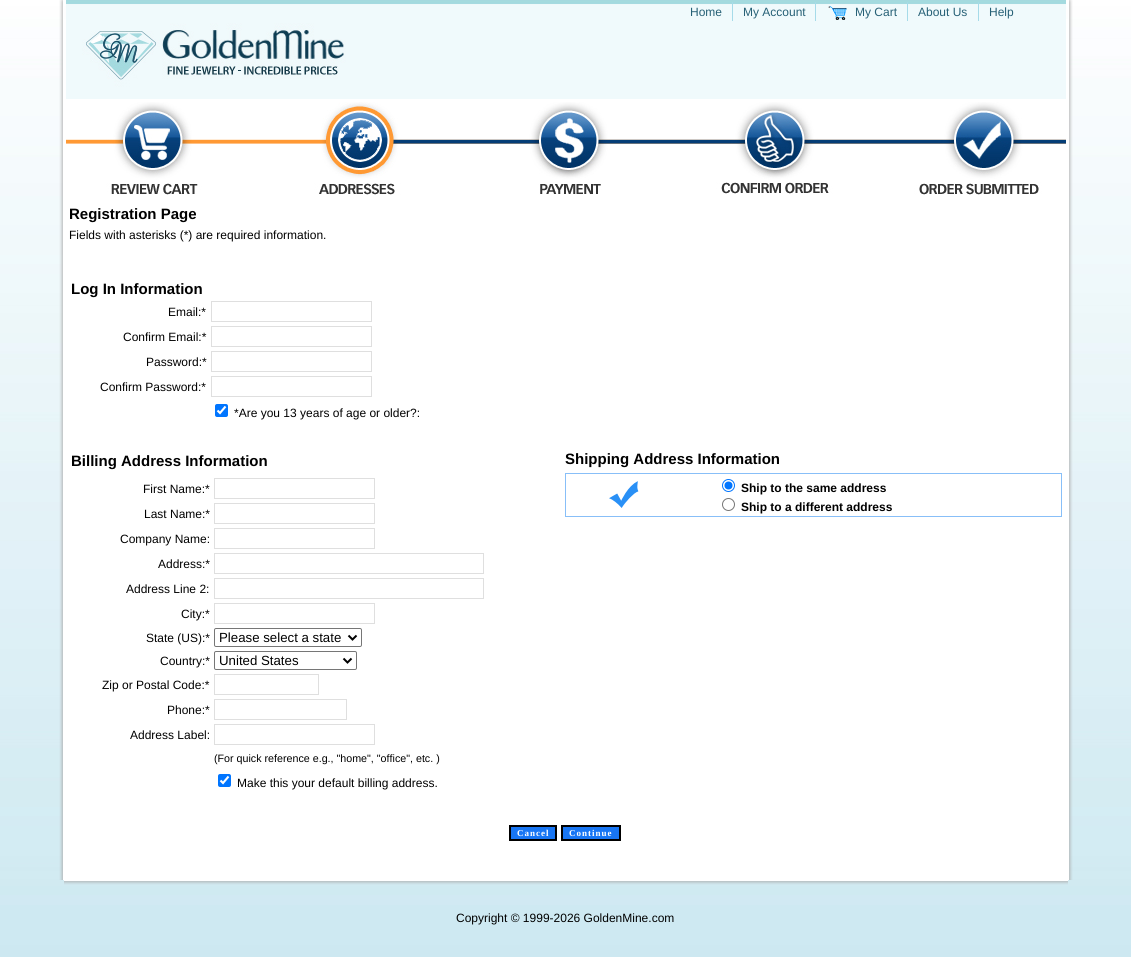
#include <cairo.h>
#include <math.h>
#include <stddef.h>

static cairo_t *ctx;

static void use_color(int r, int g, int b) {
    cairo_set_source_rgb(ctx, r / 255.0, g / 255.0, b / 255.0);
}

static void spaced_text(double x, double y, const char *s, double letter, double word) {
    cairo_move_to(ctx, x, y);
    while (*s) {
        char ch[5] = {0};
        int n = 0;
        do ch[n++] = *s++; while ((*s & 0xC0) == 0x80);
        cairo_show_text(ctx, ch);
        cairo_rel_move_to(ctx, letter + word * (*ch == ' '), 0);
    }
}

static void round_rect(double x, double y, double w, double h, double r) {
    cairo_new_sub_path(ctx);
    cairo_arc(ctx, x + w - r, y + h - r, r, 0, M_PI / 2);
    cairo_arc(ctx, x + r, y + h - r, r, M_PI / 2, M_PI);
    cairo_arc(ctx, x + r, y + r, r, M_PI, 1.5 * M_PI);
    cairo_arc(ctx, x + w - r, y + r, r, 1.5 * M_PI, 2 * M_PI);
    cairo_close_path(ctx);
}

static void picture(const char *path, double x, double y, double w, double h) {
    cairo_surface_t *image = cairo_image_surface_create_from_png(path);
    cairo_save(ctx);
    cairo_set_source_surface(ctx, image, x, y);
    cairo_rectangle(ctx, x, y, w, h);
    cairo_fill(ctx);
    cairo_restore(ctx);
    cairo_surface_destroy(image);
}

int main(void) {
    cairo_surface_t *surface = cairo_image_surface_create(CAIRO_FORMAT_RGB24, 1131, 957);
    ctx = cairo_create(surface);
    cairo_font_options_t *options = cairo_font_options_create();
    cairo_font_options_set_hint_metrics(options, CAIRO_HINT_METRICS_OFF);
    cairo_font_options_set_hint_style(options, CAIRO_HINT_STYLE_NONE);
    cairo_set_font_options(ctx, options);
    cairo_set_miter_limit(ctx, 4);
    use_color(255, 255, 255);
    cairo_paint(ctx);
    picture("img1.png", 0, 6, 1131, 951);
    picture("img2.png", 59, 0, 5, 880);
    use_color(255, 255, 255);
    cairo_rectangle(ctx, 64, 19, 1004, 861);
    cairo_fill(ctx);
    picture("img3.png", 66, 0, 1000, 99);
    cairo_select_font_face(ctx, "Liberation Sans", CAIRO_FONT_SLANT_NORMAL, CAIRO_FONT_WEIGHT_NORMAL);
    cairo_set_font_size(ctx, 12);
    use_color(38, 96, 118);
    cairo_move_to(ctx, 690, 16);
    cairo_show_text(ctx, "Home");
    use_color(166, 219, 233);
    cairo_rectangle(ctx, 732, 2, 1, 19);
    cairo_fill(ctx);
    use_color(38, 96, 118);
    cairo_move_to(ctx, 743, 16);
    cairo_show_text(ctx, "My Account");
    use_color(166, 219, 233);
    cairo_rectangle(ctx, 815, 2, 1, 19);
    cairo_fill(ctx);
    picture("img4.png", 828, 6, 19, 14);
    use_color(38, 96, 118);
    cairo_move_to(ctx, 855, 16);
    cairo_show_text(ctx, "My Cart");
    use_color(166, 219, 233);
    cairo_rectangle(ctx, 907, 2, 1, 19);
    cairo_fill(ctx);
    use_color(38, 96, 118);
    cairo_move_to(ctx, 918, 16);
    cairo_show_text(ctx, "About Us");
    use_color(166, 219, 233);
    cairo_rectangle(ctx, 978, 2, 1, 19);
    cairo_fill(ctx);
    use_color(38, 96, 118);
    cairo_move_to(ctx, 989, 16);
    cairo_show_text(ctx, "Help");
    picture("img5.png", 66, 102, 1000, 93);
    cairo_select_font_face(ctx, "Liberation Sans", CAIRO_FONT_SLANT_NORMAL, CAIRO_FONT_WEIGHT_BOLD);
    cairo_set_font_size(ctx, 15);
    use_color(0, 0, 0);
    cairo_move_to(ctx, 69, 219);
    cairo_show_text(ctx, "Registration Page");
    cairo_select_font_face(ctx, "Liberation Sans", CAIRO_FONT_SLANT_NORMAL, CAIRO_FONT_WEIGHT_NORMAL);
    cairo_set_font_size(ctx, 12);
    cairo_move_to(ctx, 69, 239);
    cairo_show_text(ctx, "Fields with asterisks (*) are required information.");
    cairo_select_font_face(ctx, "Liberation Sans", CAIRO_FONT_SLANT_NORMAL, CAIRO_FONT_WEIGHT_BOLD);
    cairo_set_font_size(ctx, 15);
    cairo_move_to(ctx, 71, 294);
    cairo_show_text(ctx, "Log In Information");
    cairo_select_font_face(ctx, "Liberation Sans", CAIRO_FONT_SLANT_NORMAL, CAIRO_FONT_WEIGHT_NORMAL);
    cairo_set_font_size(ctx, 12);
    cairo_move_to(ctx, 168, 316);
    cairo_show_text(ctx, "Email:*");
    cairo_rectangle(ctx, 211.5, 301.5, 160, 20);
    use_color(223, 223, 223);
    cairo_set_line_width(ctx, 1);
    cairo_stroke(ctx);
    use_color(0, 0, 0);
    cairo_move_to(ctx, 123, 341);
    cairo_show_text(ctx, "Confirm Email:*");
    cairo_rectangle(ctx, 211.5, 326.5, 160, 20);
    use_color(223, 223, 223);
    cairo_stroke(ctx);
    use_color(0, 0, 0);
    cairo_move_to(ctx, 146, 366);
    cairo_show_text(ctx, "Password:*");
    cairo_rectangle(ctx, 211.5, 351.5, 160, 20);
    use_color(223, 223, 223);
    cairo_stroke(ctx);
    use_color(0, 0, 0);
    cairo_move_to(ctx, 100, 391);
    cairo_show_text(ctx, "Confirm Password:*");
    cairo_rectangle(ctx, 211.5, 376.5, 160, 20);
    use_color(223, 223, 223);
    cairo_stroke(ctx);
    use_color(0, 117, 255);
    round_rect(215, 404, 13, 13, 2);
    cairo_fill(ctx);
    cairo_new_path(ctx);
    cairo_move_to(ctx, 217.5, 410.5);
    cairo_line_to(ctx, 220, 413);
    cairo_line_to(ctx, 225.5, 406.5);
    use_color(255, 255, 255);
    cairo_set_line_width(ctx, 2.1);
    cairo_stroke(ctx);
    use_color(0, 0, 0);
    cairo_move_to(ctx, 234, 417);
    cairo_show_text(ctx, "*Are you 13 years of age or older?:");
    cairo_select_font_face(ctx, "Liberation Sans", CAIRO_FONT_SLANT_NORMAL, CAIRO_FONT_WEIGHT_BOLD);
    cairo_set_font_size(ctx, 15);
    cairo_move_to(ctx, 71, 466);
    cairo_show_text(ctx, "Billing Address Information");
    cairo_select_font_face(ctx, "Liberation Sans", CAIRO_FONT_SLANT_NORMAL, CAIRO_FONT_WEIGHT_NORMAL);
    cairo_set_font_size(ctx, 12);
    cairo_move_to(ctx, 143, 493);
    cairo_show_text(ctx, "First Name:*");
    cairo_rectangle(ctx, 214.5, 478.5, 160, 20);
    use_color(223, 223, 223);
    cairo_set_line_width(ctx, 1);
    cairo_stroke(ctx);
    use_color(0, 0, 0);
    cairo_move_to(ctx, 144, 518);
    cairo_show_text(ctx, "Last Name:*");
    cairo_rectangle(ctx, 214.5, 503.5, 160, 20);
    use_color(223, 223, 223);
    cairo_stroke(ctx);
    use_color(0, 0, 0);
    cairo_move_to(ctx, 120, 543);
    cairo_show_text(ctx, "Company Name:");
    cairo_rectangle(ctx, 214.5, 528.5, 160, 20);
    use_color(223, 223, 223);
    cairo_stroke(ctx);
    use_color(0, 0, 0);
    cairo_move_to(ctx, 158, 568);
    cairo_show_text(ctx, "Address:*");
    cairo_rectangle(ctx, 214.5, 553.5, 269, 20);
    use_color(223, 223, 223);
    cairo_stroke(ctx);
    use_color(0, 0, 0);
    cairo_move_to(ctx, 126, 593);
    cairo_show_text(ctx, "Address Line 2:");
    cairo_rectangle(ctx, 214.5, 578.5, 269, 20);
    use_color(223, 223, 223);
    cairo_stroke(ctx);
    use_color(0, 0, 0);
    cairo_move_to(ctx, 181, 618);
    cairo_show_text(ctx, "City:*");
    cairo_rectangle(ctx, 214.5, 603.5, 160, 20);
    use_color(223, 223, 223);
    cairo_stroke(ctx);
    use_color(0, 0, 0);
    cairo_move_to(ctx, 146, 642);
    cairo_show_text(ctx, "State (US):*");
    round_rect(214.5, 628.5, 147, 18, 1.5);
    use_color(118, 118, 118);
    cairo_stroke(ctx);
    cairo_new_path(ctx);
    cairo_move_to(ctx, 348.5, 635.5);
    cairo_line_to(ctx, 352.5, 639.5);
    cairo_line_to(ctx, 356.5, 635.5);
    use_color(0, 0, 0);
    cairo_set_line_width(ctx, 2);
    cairo_stroke(ctx);
    cairo_set_font_size(ctx, 13.25);
    cairo_move_to(ctx, 219, 642);
    cairo_show_text(ctx, "Please select a state");
    cairo_set_font_size(ctx, 12);
    cairo_move_to(ctx, 160, 665);
    cairo_show_text(ctx, "Country:*");
    round_rect(214.5, 651.5, 142, 18, 1.5);
    use_color(118, 118, 118);
    cairo_set_line_width(ctx, 1);
    cairo_stroke(ctx);
    cairo_new_path(ctx);
    cairo_move_to(ctx, 343.5, 658.5);
    cairo_line_to(ctx, 347.5, 662.5);
    cairo_line_to(ctx, 351.5, 658.5);
    use_color(0, 0, 0);
    cairo_set_line_width(ctx, 2);
    cairo_stroke(ctx);
    cairo_set_font_size(ctx, 13.25);
    cairo_move_to(ctx, 219, 665);
    cairo_show_text(ctx, "United States");
    cairo_set_font_size(ctx, 12);
    cairo_move_to(ctx, 102, 689);
    cairo_show_text(ctx, "Zip or Postal Code:*");
    cairo_rectangle(ctx, 214.5, 674.5, 104, 20);
    use_color(223, 223, 223);
    cairo_set_line_width(ctx, 1);
    cairo_stroke(ctx);
    use_color(0, 0, 0);
    cairo_move_to(ctx, 167, 714);
    cairo_show_text(ctx, "Phone:*");
    cairo_rectangle(ctx, 214.5, 699.5, 132, 20);
    use_color(223, 223, 223);
    cairo_stroke(ctx);
    use_color(0, 0, 0);
    cairo_move_to(ctx, 130, 739);
    cairo_show_text(ctx, "Address Label:");
    cairo_rectangle(ctx, 214.5, 724.5, 160, 20);
    use_color(223, 223, 223);
    cairo_stroke(ctx);
    cairo_set_font_size(ctx, 10.7);
    use_color(0, 0, 0);
    cairo_move_to(ctx, 214, 762);
    cairo_show_text(ctx, "(For quick reference e.g., \"home\", \"office\", etc. )");
    use_color(0, 117, 255);
    round_rect(218, 774, 13, 13, 2);
    cairo_fill(ctx);
    cairo_new_path(ctx);
    cairo_move_to(ctx, 220.5, 780.5);
    cairo_line_to(ctx, 223, 783);
    cairo_line_to(ctx, 228.5, 776.5);
    use_color(255, 255, 255);
    cairo_set_line_width(ctx, 2.1);
    cairo_stroke(ctx);
    cairo_set_font_size(ctx, 12);
    use_color(0, 0, 0);
    cairo_move_to(ctx, 237, 787);
    cairo_show_text(ctx, "Make this your default billing address.");
    cairo_select_font_face(ctx, "Liberation Sans", CAIRO_FONT_SLANT_NORMAL, CAIRO_FONT_WEIGHT_BOLD);
    cairo_set_font_size(ctx, 15);
    cairo_move_to(ctx, 565, 464);
    cairo_show_text(ctx, "Shipping Address Information");
    cairo_rectangle(ctx, 565.5, 473.5, 496, 43);
    use_color(136, 191, 248);
    cairo_set_line_width(ctx, 1);
    cairo_stroke(ctx);
    picture("img6.png", 609, 481, 30, 27);
    cairo_arc(ctx, 728.5, 485.5, 6, 0, 2 * M_PI);
    use_color(0, 117, 255);
    cairo_stroke(ctx);
    cairo_arc(ctx, 728.5, 485.5, 4, 0, 2 * M_PI);
    cairo_fill(ctx);
    cairo_set_font_size(ctx, 12);
    use_color(0, 0, 0);
    cairo_move_to(ctx, 741, 492);
    cairo_show_text(ctx, "Ship to the same address");
    cairo_new_path(ctx);
    cairo_arc(ctx, 728.5, 504.5, 6, 0, 2 * M_PI);
    use_color(118, 118, 118);
    cairo_stroke(ctx);
    use_color(0, 0, 0);
    cairo_move_to(ctx, 741, 511);
    cairo_show_text(ctx, "Ship to a different address");
    use_color(24, 118, 244);
    cairo_rectangle(ctx, 510, 826, 46, 14);
    cairo_fill_preserve(ctx);
    use_color(0, 0, 0);
    cairo_set_line_width(ctx, 2);
    cairo_stroke(ctx);
    cairo_select_font_face(ctx, "Liberation Serif", CAIRO_FONT_SLANT_NORMAL, CAIRO_FONT_WEIGHT_BOLD);
    cairo_set_font_size(ctx, 9);
    use_color(255, 255, 255);
    spaced_text(517, 836, "Cancel", 1, 0);
    use_color(24, 118, 244);
    cairo_rectangle(ctx, 562, 826, 58, 14);
    cairo_fill_preserve(ctx);
    use_color(0, 0, 0);
    cairo_stroke(ctx);
    use_color(255, 255, 255);
    spaced_text(569, 836, "Continue", 1, 0);
    picture("img7.png", 1068, 0, 5, 880);
    picture("img8.png", 64, 880, 1004, 5);
    cairo_select_font_face(ctx, "Liberation Sans", CAIRO_FONT_SLANT_NORMAL, CAIRO_FONT_WEIGHT_NORMAL);
    cairo_set_font_size(ctx, 12);
    use_color(0, 0, 0);
    cairo_move_to(ctx, 456, 922);
    cairo_show_text(ctx, "Copyright © 1999-2026 GoldenMine.com");
    cairo_surface_write_to_png(surface, "result.png");
    cairo_font_options_destroy(options);
    cairo_destroy(ctx);
    cairo_surface_destroy(surface);
    return 0;
}
